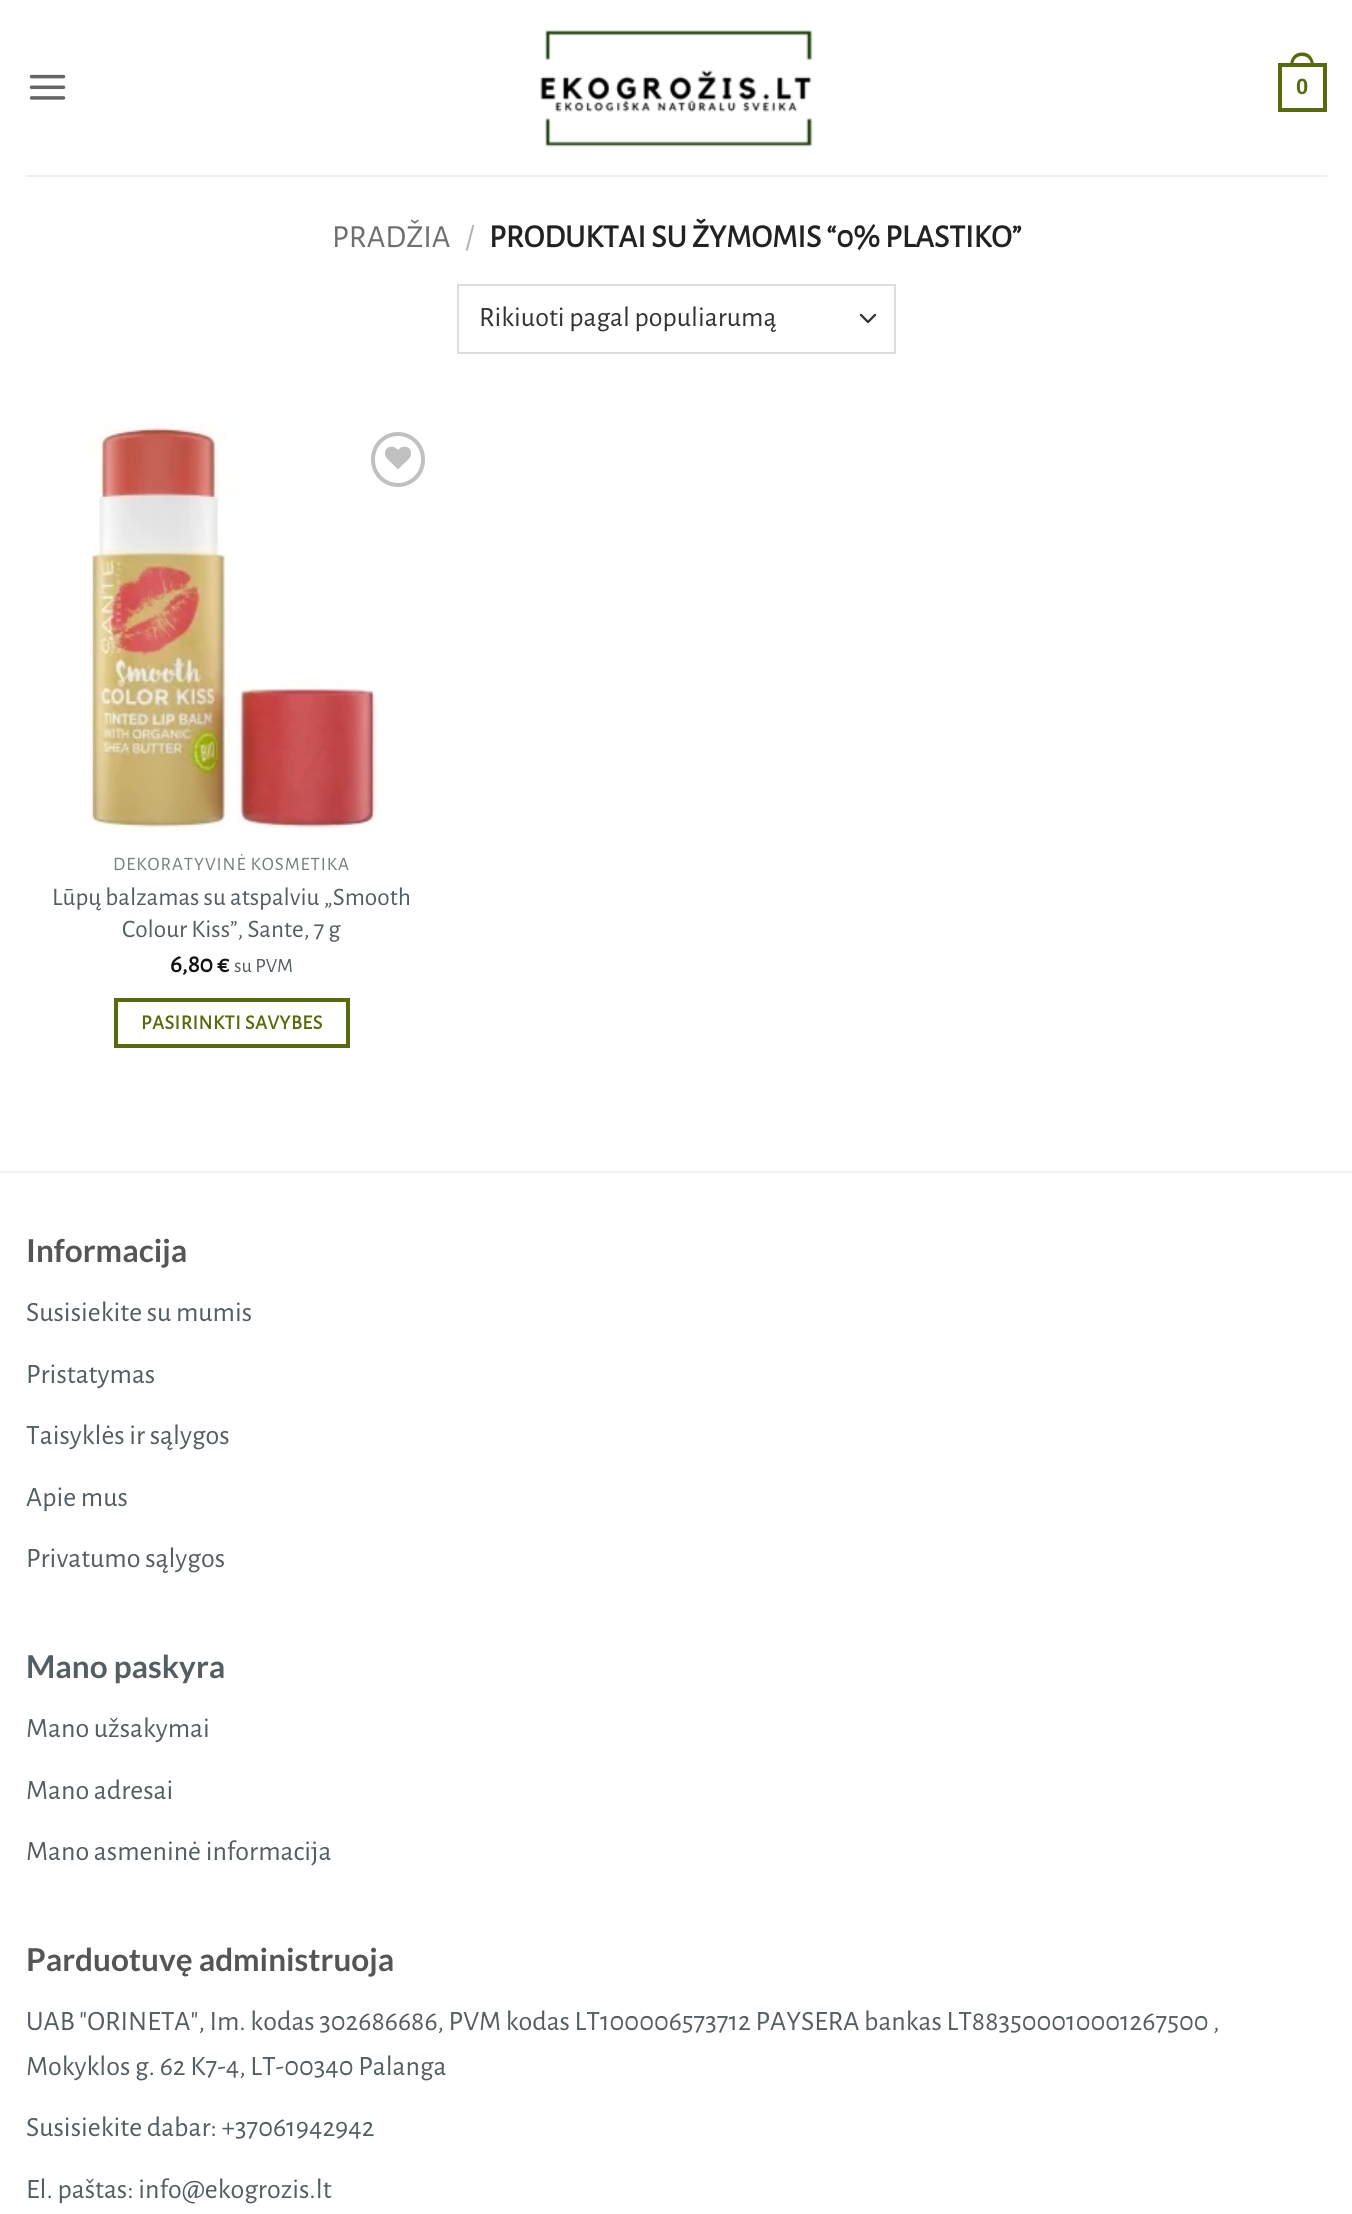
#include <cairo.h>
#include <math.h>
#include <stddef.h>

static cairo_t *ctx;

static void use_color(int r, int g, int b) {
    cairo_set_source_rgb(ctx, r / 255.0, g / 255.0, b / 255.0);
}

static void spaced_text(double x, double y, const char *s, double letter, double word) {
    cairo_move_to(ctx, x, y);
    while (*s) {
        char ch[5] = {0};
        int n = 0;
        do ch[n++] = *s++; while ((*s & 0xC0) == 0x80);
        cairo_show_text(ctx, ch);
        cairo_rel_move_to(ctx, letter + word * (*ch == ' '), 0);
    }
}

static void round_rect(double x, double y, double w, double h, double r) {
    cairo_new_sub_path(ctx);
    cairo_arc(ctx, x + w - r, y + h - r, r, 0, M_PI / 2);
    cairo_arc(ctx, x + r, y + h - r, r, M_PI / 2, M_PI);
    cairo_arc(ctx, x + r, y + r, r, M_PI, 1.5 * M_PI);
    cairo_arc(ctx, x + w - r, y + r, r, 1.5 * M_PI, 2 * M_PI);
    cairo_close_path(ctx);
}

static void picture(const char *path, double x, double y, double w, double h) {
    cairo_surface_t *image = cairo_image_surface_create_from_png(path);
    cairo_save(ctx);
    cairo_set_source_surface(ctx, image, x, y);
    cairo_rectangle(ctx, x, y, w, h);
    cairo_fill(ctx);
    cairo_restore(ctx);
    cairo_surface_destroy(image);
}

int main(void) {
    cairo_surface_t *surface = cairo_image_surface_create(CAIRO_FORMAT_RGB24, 1352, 2214);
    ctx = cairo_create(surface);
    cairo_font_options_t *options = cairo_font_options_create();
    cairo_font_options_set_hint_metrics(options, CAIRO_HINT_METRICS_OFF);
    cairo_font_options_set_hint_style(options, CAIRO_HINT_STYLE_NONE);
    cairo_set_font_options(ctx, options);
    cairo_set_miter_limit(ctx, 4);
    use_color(255, 255, 255);
    cairo_paint(ctx);
    picture("img1.png", 29, 74, 37, 26);
    picture("img2.png", 540, 29, 273, 118);
    cairo_rectangle(ctx, 1280, 65, 45, 45);
    use_color(86, 107, 14);
    cairo_set_line_width(ctx, 4);
    cairo_stroke(ctx);
    cairo_set_fill_rule(ctx, CAIRO_FILL_RULE_EVEN_ODD);
    cairo_new_path(ctx);
    cairo_move_to(ctx, 1302, 52.5);
    cairo_curve_to(ctx, 1310.5, 52.5, 1314, 59, 1314, 66.5);
    cairo_line_to(ctx, 1290, 66.5);
    cairo_curve_to(ctx, 1290, 59, 1293.5, 52.5, 1302, 52.5);
    cairo_close_path(ctx);
    cairo_move_to(ctx, 1302, 56);
    cairo_curve_to(ctx, 1308.5, 56, 1311, 61, 1311, 66.5);
    cairo_line_to(ctx, 1293, 66.5);
    cairo_curve_to(ctx, 1293, 61, 1295.5, 56, 1302, 56);
    cairo_close_path(ctx);
    cairo_fill(ctx);
    cairo_select_font_face(ctx, "Liberation Sans", CAIRO_FONT_SLANT_NORMAL, CAIRO_FONT_WEIGHT_BOLD);
    cairo_set_font_size(ctx, 22);
    cairo_move_to(ctx, 1296, 94);
    cairo_show_text(ctx, "0");
    use_color(238, 239, 239);
    cairo_rectangle(ctx, 26, 175, 1301, 2);
    cairo_fill(ctx);
    cairo_select_font_face(ctx, "Alegreya Sans", CAIRO_FONT_SLANT_NORMAL, CAIRO_FONT_WEIGHT_NORMAL);
    cairo_set_font_size(ctx, 32.25);
    use_color(110, 110, 110);
    cairo_move_to(ctx, 332, 247);
    cairo_show_text(ctx, "PRADŽIA");
    use_color(178, 178, 178);
    cairo_move_to(ctx, 465, 247);
    cairo_show_text(ctx, "/");
    cairo_select_font_face(ctx, "Alegreya Sans", CAIRO_FONT_SLANT_NORMAL, CAIRO_FONT_WEIGHT_BOLD);
    use_color(34, 34, 34);
    cairo_move_to(ctx, 489, 247);
    cairo_show_text(ctx, "PRODUKTAI SU ŽYMOMIS “0% PLASTIKO”");
    cairo_new_path(ctx);
    cairo_move_to(ctx, 861, 315);
    cairo_line_to(ctx, 868, 322);
    cairo_line_to(ctx, 875, 315);
    use_color(51, 51, 51);
    cairo_set_line_width(ctx, 2.3);
    cairo_set_line_cap(ctx, CAIRO_LINE_CAP_ROUND);
    cairo_set_line_join(ctx, CAIRO_LINE_JOIN_ROUND);
    cairo_stroke(ctx);
    cairo_rectangle(ctx, 458, 285, 437, 68);
    use_color(221, 221, 221);
    cairo_set_line_width(ctx, 2);
    cairo_set_line_cap(ctx, CAIRO_LINE_CAP_BUTT);
    cairo_set_line_join(ctx, CAIRO_LINE_JOIN_MITER);
    cairo_stroke(ctx);
    cairo_select_font_face(ctx, "Alegreya Sans", CAIRO_FONT_SLANT_NORMAL, CAIRO_FONT_WEIGHT_NORMAL);
    cairo_set_font_size(ctx, 28);
    use_color(51, 51, 51);
    cairo_move_to(ctx, 479, 326);
    cairo_show_text(ctx, "Rikiuoti pagal populiarumą");
    picture("img3.png", 87, 424, 292, 408);
    round_rect(373, 434, 50, 51, 25);
    use_color(192, 192, 192);
    cairo_set_line_width(ctx, 4);
    cairo_stroke(ctx);
    picture("img4.png", 385, 446, 26, 23);
    cairo_set_font_size(ctx, 18.9);
    use_color(118, 125, 129);
    spaced_text(113, 870, "DEKORATYVINĖ KOSMETIKA", 0.95, 0);
    cairo_set_font_size(ctx, 25.25);
    use_color(84, 93, 98);
    cairo_move_to(ctx, 52, 905);
    cairo_show_text(ctx, "Lūpų balzamas su atspalviu „Smooth");
    cairo_move_to(ctx, 122, 937);
    cairo_show_text(ctx, "Colour Kiss”, Sante, 7 g");
    cairo_select_font_face(ctx, "Alegreya Sans", CAIRO_FONT_SLANT_NORMAL, CAIRO_FONT_WEIGHT_BOLD);
    use_color(17, 17, 17);
    cairo_move_to(ctx, 170, 972);
    cairo_show_text(ctx, "6,80 €");
    cairo_select_font_face(ctx, "Alegreya Sans", CAIRO_FONT_SLANT_NORMAL, CAIRO_FONT_WEIGHT_NORMAL);
    cairo_set_font_size(ctx, 20.25);
    use_color(84, 93, 98);
    cairo_move_to(ctx, 234, 972);
    cairo_show_text(ctx, "su PVM");
    cairo_rectangle(ctx, 116, 1000, 232, 46);
    use_color(86, 107, 14);
    cairo_stroke(ctx);
    cairo_select_font_face(ctx, "Alegreya Sans", CAIRO_FONT_SLANT_NORMAL, CAIRO_FONT_WEIGHT_BOLD);
    spaced_text(141, 1029, "PASIRINKTI SAVYBES", 0.6, 0);
    use_color(242, 242, 242);
    cairo_rectangle(ctx, 0, 1171, 1352, 2);
    cairo_fill(ctx);
    cairo_select_font_face(ctx, "Lato", CAIRO_FONT_SLANT_NORMAL, CAIRO_FONT_WEIGHT_BOLD);
    cairo_set_font_size(ctx, 31.5);
    use_color(85, 85, 85);
    cairo_move_to(ctx, 26, 1262);
    cairo_show_text(ctx, "Informacija");
    cairo_select_font_face(ctx, "Alegreya Sans", CAIRO_FONT_SLANT_NORMAL, CAIRO_FONT_WEIGHT_NORMAL);
    cairo_set_font_size(ctx, 28);
    use_color(84, 93, 98);
    cairo_move_to(ctx, 26, 1321);
    cairo_show_text(ctx, "Susisiekite su mumis");
    cairo_move_to(ctx, 26, 1383);
    cairo_show_text(ctx, "Pristatymas");
    cairo_move_to(ctx, 26, 1444);
    cairo_show_text(ctx, "Taisyklės ir sąlygos");
    cairo_move_to(ctx, 26, 1506);
    cairo_show_text(ctx, "Apie mus");
    cairo_move_to(ctx, 26, 1567);
    cairo_show_text(ctx, "Privatumo sąlygos");
    cairo_select_font_face(ctx, "Lato", CAIRO_FONT_SLANT_NORMAL, CAIRO_FONT_WEIGHT_BOLD);
    cairo_set_font_size(ctx, 31.5);
    cairo_move_to(ctx, 26, 1678);
    cairo_show_text(ctx, "Mano paskyra");
    cairo_select_font_face(ctx, "Alegreya Sans", CAIRO_FONT_SLANT_NORMAL, CAIRO_FONT_WEIGHT_NORMAL);
    cairo_set_font_size(ctx, 28);
    cairo_move_to(ctx, 26, 1737);
    cairo_show_text(ctx, "Mano užsakymai");
    cairo_move_to(ctx, 26, 1799);
    cairo_show_text(ctx, "Mano adresai");
    cairo_move_to(ctx, 26, 1860);
    cairo_show_text(ctx, "Mano asmeninė informacija");
    cairo_select_font_face(ctx, "Lato", CAIRO_FONT_SLANT_NORMAL, CAIRO_FONT_WEIGHT_BOLD);
    cairo_set_font_size(ctx, 31.5);
    use_color(85, 85, 85);
    cairo_move_to(ctx, 26, 1971);
    cairo_show_text(ctx, "Parduotuvę administruoja");
    cairo_select_font_face(ctx, "Alegreya Sans", CAIRO_FONT_SLANT_NORMAL, CAIRO_FONT_WEIGHT_NORMAL);
    cairo_set_font_size(ctx, 28);
    use_color(84, 93, 98);
    cairo_move_to(ctx, 26, 2030);
    cairo_show_text(ctx, "UAB \"ORINETA\", Im. kodas 302686686, PVM kodas LT100006573712 PAYSERA bankas LT883500010001267500 ,");
    cairo_move_to(ctx, 26, 2075);
    cairo_show_text(ctx, "Mokyklos g. 62 K7-4, LT-00340 Palanga");
    cairo_move_to(ctx, 26, 2136);
    cairo_show_text(ctx, "Susisiekite dabar: +37061942942");
    cairo_move_to(ctx, 26, 2198);
    cairo_show_text(ctx, "El. paštas: info@ekogrozis.lt");
    cairo_surface_write_to_png(surface, "result.png");
    cairo_font_options_destroy(options);
    cairo_destroy(ctx);
    cairo_surface_destroy(surface);
    return 0;
}
